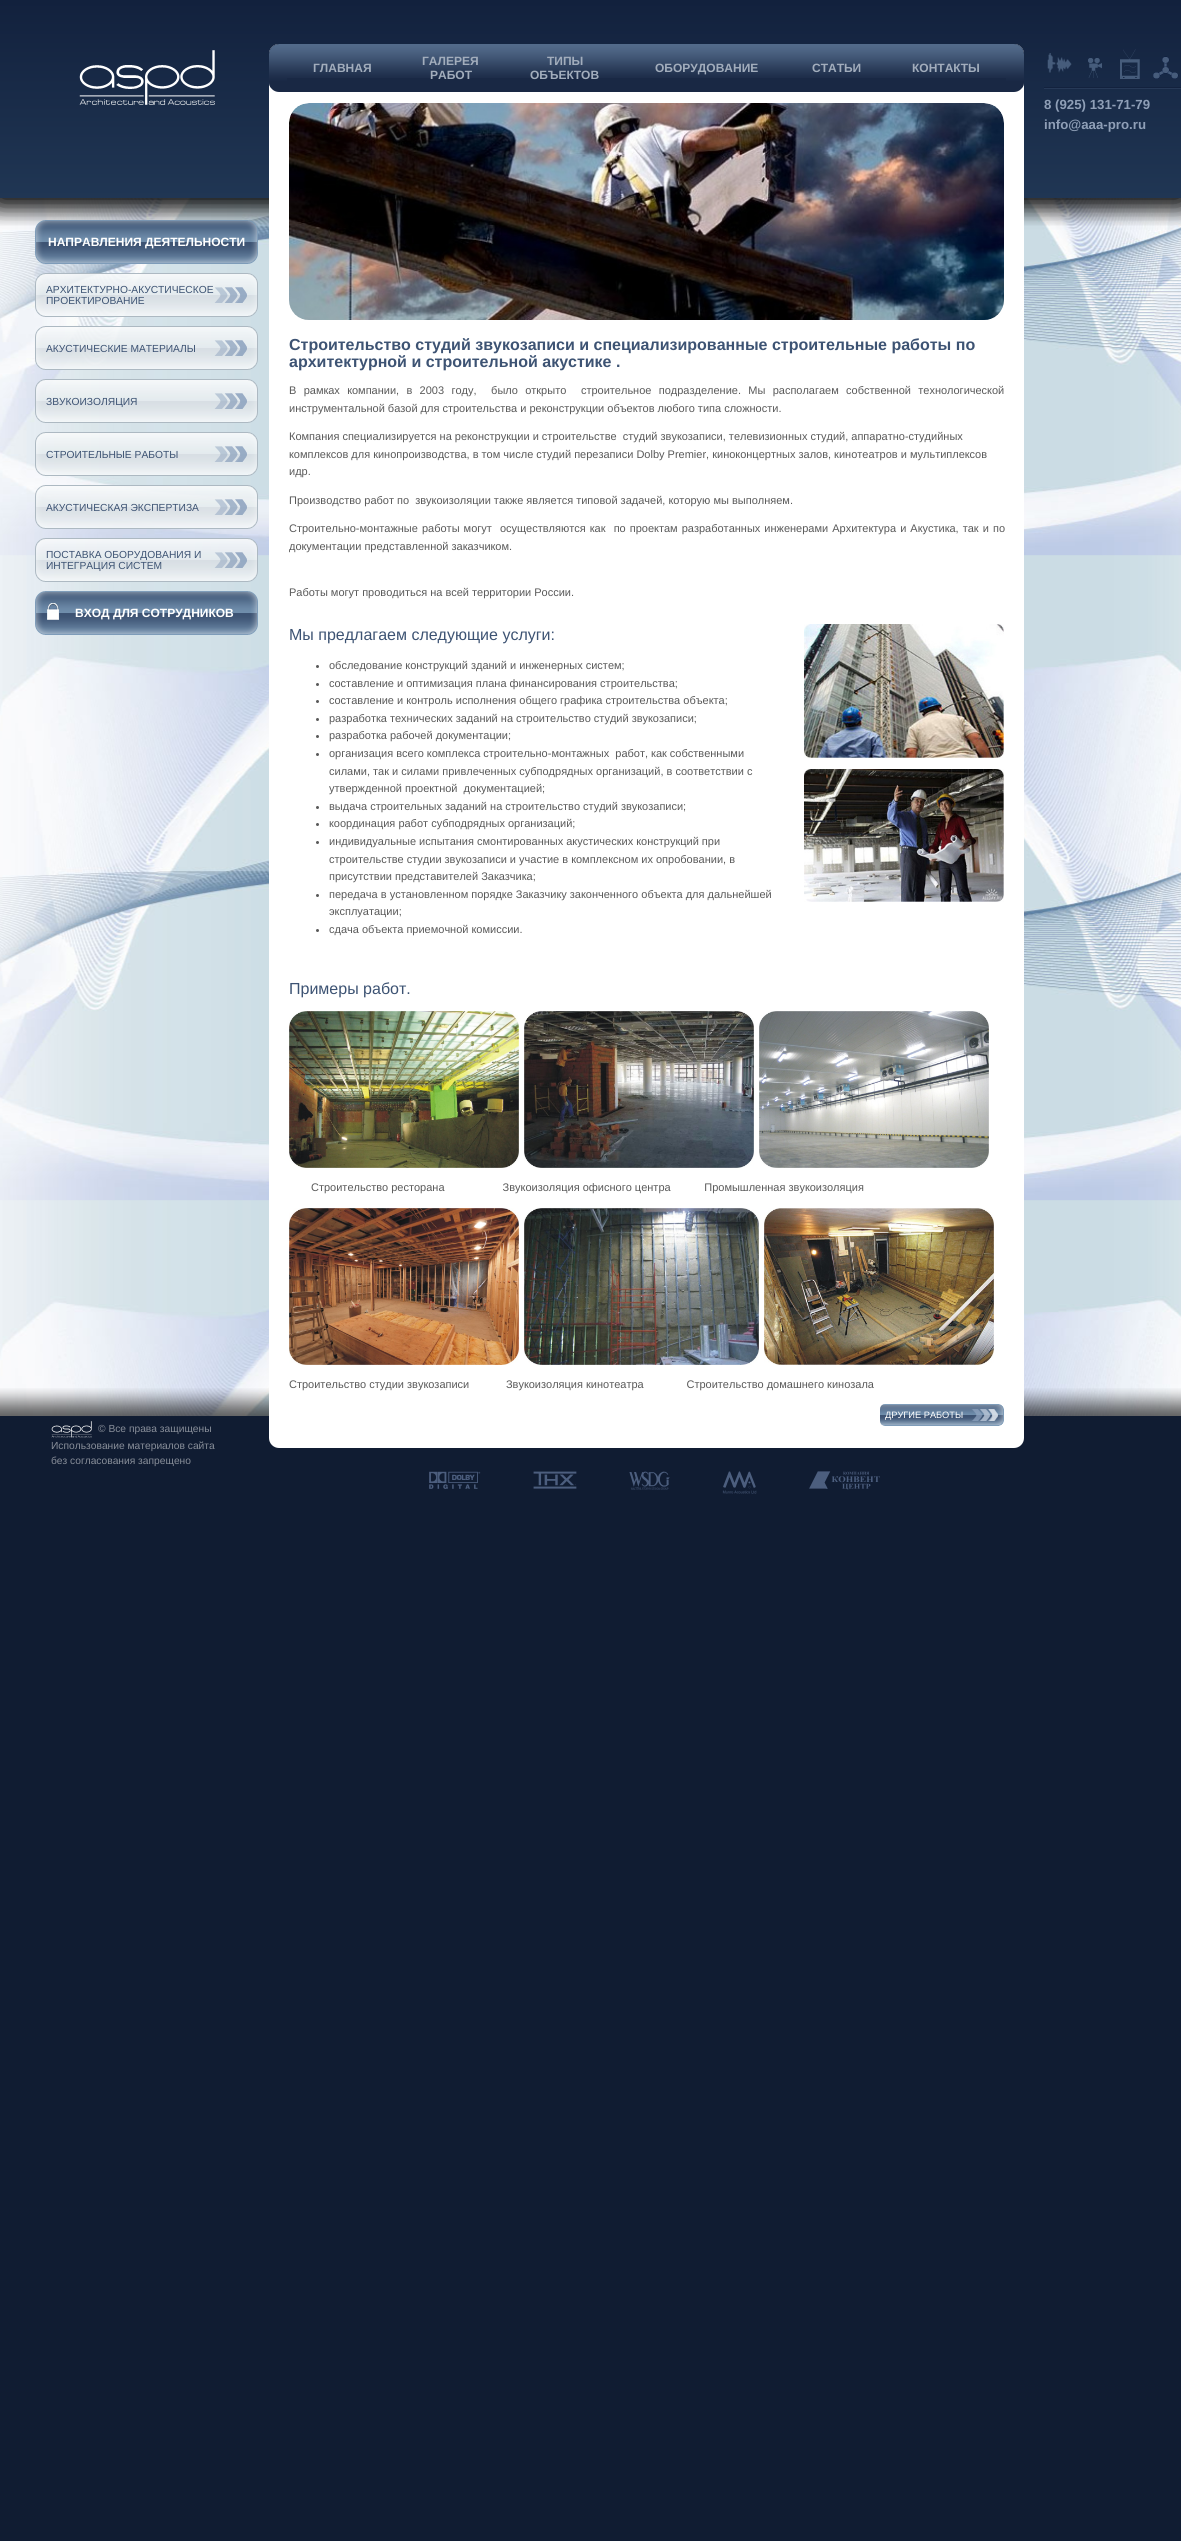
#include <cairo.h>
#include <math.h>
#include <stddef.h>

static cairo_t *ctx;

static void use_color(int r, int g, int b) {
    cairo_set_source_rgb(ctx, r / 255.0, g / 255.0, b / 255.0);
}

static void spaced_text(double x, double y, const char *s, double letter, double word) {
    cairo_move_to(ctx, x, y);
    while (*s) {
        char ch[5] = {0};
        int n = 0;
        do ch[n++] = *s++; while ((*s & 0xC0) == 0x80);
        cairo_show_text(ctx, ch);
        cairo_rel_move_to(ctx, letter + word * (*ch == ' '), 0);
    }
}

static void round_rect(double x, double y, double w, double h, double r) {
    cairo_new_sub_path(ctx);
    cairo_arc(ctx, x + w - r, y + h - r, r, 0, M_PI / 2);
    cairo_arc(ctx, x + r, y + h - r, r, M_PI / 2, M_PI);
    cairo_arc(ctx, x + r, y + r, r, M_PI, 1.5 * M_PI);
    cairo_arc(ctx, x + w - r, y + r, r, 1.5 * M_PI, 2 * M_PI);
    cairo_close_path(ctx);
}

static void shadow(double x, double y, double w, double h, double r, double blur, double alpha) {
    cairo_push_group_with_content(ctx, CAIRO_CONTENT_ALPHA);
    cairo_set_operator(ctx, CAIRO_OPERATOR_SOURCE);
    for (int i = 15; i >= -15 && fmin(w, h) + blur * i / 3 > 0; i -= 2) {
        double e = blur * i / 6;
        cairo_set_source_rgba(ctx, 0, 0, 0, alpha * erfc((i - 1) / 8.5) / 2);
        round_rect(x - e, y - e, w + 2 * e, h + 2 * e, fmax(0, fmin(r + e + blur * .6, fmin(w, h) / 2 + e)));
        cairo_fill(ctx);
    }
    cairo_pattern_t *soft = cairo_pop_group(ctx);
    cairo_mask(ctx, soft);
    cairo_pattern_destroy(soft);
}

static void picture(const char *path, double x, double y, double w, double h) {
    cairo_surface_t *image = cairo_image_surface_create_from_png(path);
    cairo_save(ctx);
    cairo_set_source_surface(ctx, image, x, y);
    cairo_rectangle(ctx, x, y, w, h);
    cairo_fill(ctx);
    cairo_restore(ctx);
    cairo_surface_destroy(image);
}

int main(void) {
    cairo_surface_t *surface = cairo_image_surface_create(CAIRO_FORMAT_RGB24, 1181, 2541);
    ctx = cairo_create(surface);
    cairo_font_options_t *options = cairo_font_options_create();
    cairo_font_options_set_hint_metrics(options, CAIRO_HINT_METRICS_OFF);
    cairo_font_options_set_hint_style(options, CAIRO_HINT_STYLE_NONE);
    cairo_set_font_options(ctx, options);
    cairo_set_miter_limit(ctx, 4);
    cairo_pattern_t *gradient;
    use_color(16, 28, 50);
    cairo_paint(ctx);
    picture("img1.png", 0, 198, 1181, 1218);
    picture("img28.png", 0, 198, 1181, 28);
    picture("img2.png", 35, 220, 223, 44);
    cairo_select_font_face(ctx, "Liberation Sans", CAIRO_FONT_SLANT_NORMAL, CAIRO_FONT_WEIGHT_BOLD);
    cairo_set_font_size(ctx, 12);
    use_color(255, 255, 255);
    cairo_move_to(ctx, 48, 246);
    cairo_show_text(ctx, "НАПРАВЛЕНИЯ ДЕЯТЕЛЬНОСТИ");
    picture("img3.png", 35, 273, 223, 44);
    cairo_select_font_face(ctx, "Liberation Sans", CAIRO_FONT_SLANT_NORMAL, CAIRO_FONT_WEIGHT_NORMAL);
    cairo_set_font_size(ctx, 10.25);
    use_color(61, 83, 115);
    cairo_move_to(ctx, 46, 293);
    cairo_show_text(ctx, "АРХИТЕКТУРНО-АКУСТИЧЕСКОЕ");
    cairo_move_to(ctx, 46, 304);
    cairo_show_text(ctx, "ПРОЕКТИРОВАНИЕ");
    picture("img4.png", 35, 326, 223, 44);
    cairo_move_to(ctx, 46, 352);
    cairo_show_text(ctx, "АКУСТИЧЕСКИЕ МАТЕРИАЛЫ");
    picture("img5.png", 35, 379, 223, 44);
    cairo_move_to(ctx, 46, 405);
    cairo_show_text(ctx, "ЗВУКОИЗОЛЯЦИЯ");
    picture("img6.png", 35, 432, 223, 44);
    cairo_move_to(ctx, 46, 458);
    cairo_show_text(ctx, "СТРОИТЕЛЬНЫЕ РАБОТЫ");
    picture("img7.png", 35, 485, 223, 44);
    cairo_move_to(ctx, 46, 511);
    cairo_show_text(ctx, "АКУСТИЧЕСКАЯ ЭКСПЕРТИЗА");
    picture("img8.png", 35, 538, 223, 44);
    cairo_move_to(ctx, 46, 558);
    cairo_show_text(ctx, "ПОСТАВКА ОБОРУДОВАНИЯ И");
    cairo_move_to(ctx, 46, 569);
    cairo_show_text(ctx, "ИНТЕГРАЦИЯ СИСТЕМ");
    picture("img9.png", 35, 591, 223, 44);
    cairo_select_font_face(ctx, "Liberation Sans", CAIRO_FONT_SLANT_NORMAL, CAIRO_FONT_WEIGHT_BOLD);
    cairo_set_font_size(ctx, 12);
    use_color(255, 255, 255);
    cairo_move_to(ctx, 75, 617);
    cairo_show_text(ctx, "ВХОД ДЛЯ СОТРУДНИКОВ");
    picture("img29.png", 0, 1388, 1181, 28);
    use_color(0, 0, 0);
    shadow(0, 0, 1181, 198, 0, 12.5, 1);
    gradient = cairo_pattern_create_linear(0, 0, 0, 198);
    cairo_pattern_add_color_stop_rgba(gradient, 0, 0.071, 0.129, 0.239, 1);
    cairo_pattern_add_color_stop_rgba(gradient, 1, 0.125, 0.212, 0.329, 1);
    cairo_set_source(ctx, gradient);
    cairo_pattern_destroy(gradient);
    cairo_rectangle(ctx, 0, 0, 1181, 198);
    cairo_fill(ctx);
    use_color(255, 255, 255);
    round_rect(269, 44, 755, 1404, 10);
    cairo_fill(ctx);
    use_color(25, 40, 68);
    cairo_new_path(ctx);
    cairo_move_to(ctx, 279, 44);
    cairo_line_to(ctx, 287, 44);
    cairo_line_to(ctx, 287, 92);
    cairo_line_to(ctx, 279, 92);
    cairo_curve_to(ctx, 273.5, 92, 269, 87.5, 269, 82);
    cairo_line_to(ctx, 269, 54);
    cairo_curve_to(ctx, 269, 48.5, 273.5, 44, 279, 44);
    cairo_close_path(ctx);
    cairo_fill(ctx);
    picture("img10.png", 269, 44, 18, 44);
    cairo_rectangle(ctx, 287, 78, 719, 14);
    cairo_fill(ctx);
    picture("img11.png", 287, 44, 110, 34);
    use_color(162, 173, 188);
    cairo_move_to(ctx, 313, 72);
    cairo_show_text(ctx, "ГЛАВНАЯ");
    picture("img12.png", 397, 44, 107, 34);
    cairo_move_to(ctx, 422, 65);
    cairo_show_text(ctx, "ГАЛЕРЕЯ");
    cairo_move_to(ctx, 430, 79);
    cairo_show_text(ctx, "РАБОТ");
    picture("img13.png", 504, 44, 122, 34);
    cairo_move_to(ctx, 547, 65);
    cairo_show_text(ctx, "ТИПЫ");
    cairo_move_to(ctx, 530, 79);
    cairo_show_text(ctx, "ОБЪЕКТОВ");
    picture("img14.png", 626, 44, 161, 34);
    cairo_move_to(ctx, 655, 72);
    cairo_show_text(ctx, "ОБОРУДОВАНИЕ");
    picture("img15.png", 787, 44, 99, 34);
    cairo_move_to(ctx, 812, 72);
    cairo_show_text(ctx, "СТАТЬИ");
    picture("img16.png", 886, 44, 120, 34);
    cairo_move_to(ctx, 912, 72);
    cairo_show_text(ctx, "КОНТАКТЫ");
    use_color(25, 40, 68);
    cairo_new_path(ctx);
    cairo_move_to(ctx, 1006, 44);
    cairo_line_to(ctx, 1014, 44);
    cairo_curve_to(ctx, 1019.5, 44, 1024, 48.5, 1024, 54);
    cairo_line_to(ctx, 1024, 82);
    cairo_curve_to(ctx, 1024, 87.5, 1019.5, 92, 1014, 92);
    cairo_line_to(ctx, 1006, 92);
    cairo_close_path(ctx);
    cairo_fill(ctx);
    picture("img17.png", 1006, 44, 18, 44);
    picture("img18.png", 289, 103, 715, 217);
    cairo_set_font_size(ctx, 16);
    use_color(61, 83, 115);
    cairo_move_to(ctx, 289, 350);
    cairo_show_text(ctx, "Строительство студий звукозаписи и специализированные строительные работы по");
    cairo_move_to(ctx, 289, 367);
    cairo_show_text(ctx, "архитектурной и строительной акустике .");
    cairo_select_font_face(ctx, "Liberation Sans", CAIRO_FONT_SLANT_NORMAL, CAIRO_FONT_WEIGHT_NORMAL);
    cairo_set_font_size(ctx, 11);
    use_color(89, 89, 89);
    spaced_text(289, 394, "В рамках компании, в 2003 году,  было открыто  строительное подразделение. Мы располагаем собственной технологической", 0, 4.25);
    cairo_move_to(ctx, 289, 412);
    cairo_show_text(ctx, "инструментальной базой для строительства и реконструкции объектов любого типа сложности.");
    cairo_move_to(ctx, 289, 440);
    cairo_show_text(ctx, "Компания специализируется на реконструкции и строительстве  студий звукозаписи, телевизионных студий, аппаратно-студийных");
    cairo_move_to(ctx, 289, 458);
    cairo_show_text(ctx, "комплексов для кинопроизводства, в том числе студий перезаписи Dolby Premier, киноконцертных залов, кинотеатров и мультиплексов");
    cairo_move_to(ctx, 289, 475);
    cairo_show_text(ctx, "идр.");
    cairo_move_to(ctx, 289, 504);
    cairo_show_text(ctx, "Производство работ по  звукоизоляции также является типовой задачей, которую мы выполняем.");
    spaced_text(289, 532, "Строительно-монтажные работы могут  осуществляются как  по проектам разработанных инженерами Архитектура и Акустика, так и по", 0, 1);
    cairo_move_to(ctx, 289, 550);
    cairo_show_text(ctx, "документации представленной заказчиком.");
    cairo_move_to(ctx, 289, 596);
    cairo_show_text(ctx, "Работы могут проводиться на всей территории России.");
    cairo_set_font_size(ctx, 16);
    use_color(61, 83, 115);
    cairo_move_to(ctx, 289, 640);
    cairo_show_text(ctx, "Мы предлагаем следующие услуги:");
    use_color(89, 89, 89);
    cairo_new_path(ctx);
    cairo_arc(ctx, 317.5, 666.5, 1.5, 0, 2 * M_PI);
    cairo_fill(ctx);
    cairo_set_font_size(ctx, 11);
    cairo_move_to(ctx, 329, 669);
    cairo_show_text(ctx, "обследование конструкций зданий и инженерных систем;");
    cairo_new_path(ctx);
    cairo_arc(ctx, 317.5, 684.5, 1.5, 0, 2 * M_PI);
    cairo_fill(ctx);
    cairo_move_to(ctx, 329, 687);
    cairo_show_text(ctx, "составление и оптимизация плана финансирования строительства;");
    cairo_new_path(ctx);
    cairo_arc(ctx, 317.5, 701.5, 1.5, 0, 2 * M_PI);
    cairo_fill(ctx);
    cairo_move_to(ctx, 329, 704);
    cairo_show_text(ctx, "составление и контроль исполнения общего графика строительства объекта;");
    cairo_new_path(ctx);
    cairo_arc(ctx, 317.5, 719.5, 1.5, 0, 2 * M_PI);
    cairo_fill(ctx);
    cairo_move_to(ctx, 329, 722);
    cairo_show_text(ctx, "разработка технических заданий на строительство студий звукозаписи;");
    cairo_new_path(ctx);
    cairo_arc(ctx, 317.5, 736.5, 1.5, 0, 2 * M_PI);
    cairo_fill(ctx);
    cairo_move_to(ctx, 329, 739);
    cairo_show_text(ctx, "разработка рабочей документации;");
    cairo_new_path(ctx);
    cairo_arc(ctx, 317.5, 754.5, 1.5, 0, 2 * M_PI);
    cairo_fill(ctx);
    cairo_move_to(ctx, 329, 757);
    cairo_show_text(ctx, "организация всего комплекса строительно-монтажных  работ, как собственными");
    cairo_move_to(ctx, 329, 775);
    cairo_show_text(ctx, "силами, так и силами привлеченных субподрядных организаций, в соответствии с");
    cairo_move_to(ctx, 329, 792);
    cairo_show_text(ctx, "утвержденной проектной  документацией;");
    cairo_new_path(ctx);
    cairo_arc(ctx, 317.5, 807.5, 1.5, 0, 2 * M_PI);
    cairo_fill(ctx);
    cairo_move_to(ctx, 329, 810);
    cairo_show_text(ctx, "выдача строительных заданий на строительство студий звукозаписи;");
    cairo_new_path(ctx);
    cairo_arc(ctx, 317.5, 824.5, 1.5, 0, 2 * M_PI);
    cairo_fill(ctx);
    cairo_move_to(ctx, 329, 827);
    cairo_show_text(ctx, "координация работ субподрядных организаций;");
    cairo_new_path(ctx);
    cairo_arc(ctx, 317.5, 842.5, 1.5, 0, 2 * M_PI);
    cairo_fill(ctx);
    cairo_move_to(ctx, 329, 845);
    cairo_show_text(ctx, "индивидуальные испытания смонтированных акустических конструкций при");
    cairo_move_to(ctx, 329, 863);
    cairo_show_text(ctx, "строительстве студии звукозаписи и участие в комплексном их опробовании, в");
    cairo_move_to(ctx, 329, 880);
    cairo_show_text(ctx, "присутствии представителей Заказчика;");
    cairo_new_path(ctx);
    cairo_arc(ctx, 317.5, 895.5, 1.5, 0, 2 * M_PI);
    cairo_fill(ctx);
    cairo_move_to(ctx, 329, 898);
    cairo_show_text(ctx, "передача в установленном порядке Заказчику законченного объекта для дальнейшей");
    cairo_move_to(ctx, 329, 915);
    cairo_show_text(ctx, "эксплуатации;");
    cairo_new_path(ctx);
    cairo_arc(ctx, 317.5, 930.5, 1.5, 0, 2 * M_PI);
    cairo_fill(ctx);
    cairo_move_to(ctx, 329, 933);
    cairo_show_text(ctx, "сдача объекта приемочной комиссии.");
    picture("img19.png", 804, 624, 200, 134);
    picture("img20.png", 804, 769, 200, 133);
    cairo_set_font_size(ctx, 16);
    use_color(61, 83, 115);
    cairo_move_to(ctx, 289, 994);
    cairo_show_text(ctx, "Примеры работ.");
    picture("img21.png", 289, 1011, 230, 157);
    picture("img22.png", 524, 1011, 230, 157);
    picture("img23.png", 759, 1011, 230, 157);
    cairo_set_font_size(ctx, 11);
    use_color(89, 89, 89);
    cairo_move_to(ctx, 311, 1191);
    cairo_show_text(ctx, "Строительство ресторана                   Звукоизоляция офисного центра           Промышленная звукоизоляция");
    picture("img24.png", 289, 1208, 230, 157);
    picture("img25.png", 524, 1208, 235, 157);
    picture("img26.png", 764, 1208, 230, 157);
    cairo_move_to(ctx, 289, 1388);
    cairo_show_text(ctx, "Строительство студии звукозаписи            Звукоизоляция кинотеатра              Строительство домашнего кинозала");
    picture("img27.png", 880, 1404, 124, 22);
    cairo_set_font_size(ctx, 9.25);
    use_color(255, 255, 255);
    cairo_move_to(ctx, 885, 1418);
    cairo_show_text(ctx, "ДРУГИЕ РАБОТЫ");
    picture("img30.png", 51, 1421, 41, 17);
    cairo_set_font_size(ctx, 10.25);
    use_color(136, 142, 153);
    cairo_move_to(ctx, 98, 1432);
    cairo_show_text(ctx, "© Все права защищены");
    cairo_move_to(ctx, 51, 1449);
    cairo_show_text(ctx, "Использование материалов сайта");
    cairo_move_to(ctx, 51, 1464);
    cairo_show_text(ctx, "без согласования запрещено");
    picture("img31.png", 429, 1471, 52, 18);
    picture("img32.png", 533, 1471, 44, 18);
    picture("img33.png", 629, 1471, 41, 19);
    picture("img34.png", 722, 1471, 35, 23);
    picture("img35.png", 809, 1471, 71, 19);
    picture("img36.png", 79, 50, 136, 55);
    picture("img37.png", 1044, 87, 137, 2);
    picture("img38.png", 1047, 53, 25, 20);
    picture("img39.png", 1088, 58, 14, 20);
    picture("img40.png", 1120, 49, 20, 30);
    picture("img41.png", 1153, 56, 26, 23);
    cairo_select_font_face(ctx, "Liberation Sans", CAIRO_FONT_SLANT_NORMAL, CAIRO_FONT_WEIGHT_BOLD);
    cairo_set_font_size(ctx, 13.25);
    use_color(143, 159, 183);
    cairo_move_to(ctx, 1044, 109);
    cairo_show_text(ctx, "8 (925) 131-71-79");
    cairo_move_to(ctx, 1044, 129);
    cairo_show_text(ctx, "info@aaa-pro.ru");
    cairo_surface_write_to_png(surface, "result.png");
    cairo_font_options_destroy(options);
    cairo_destroy(ctx);
    cairo_surface_destroy(surface);
    return 0;
}
